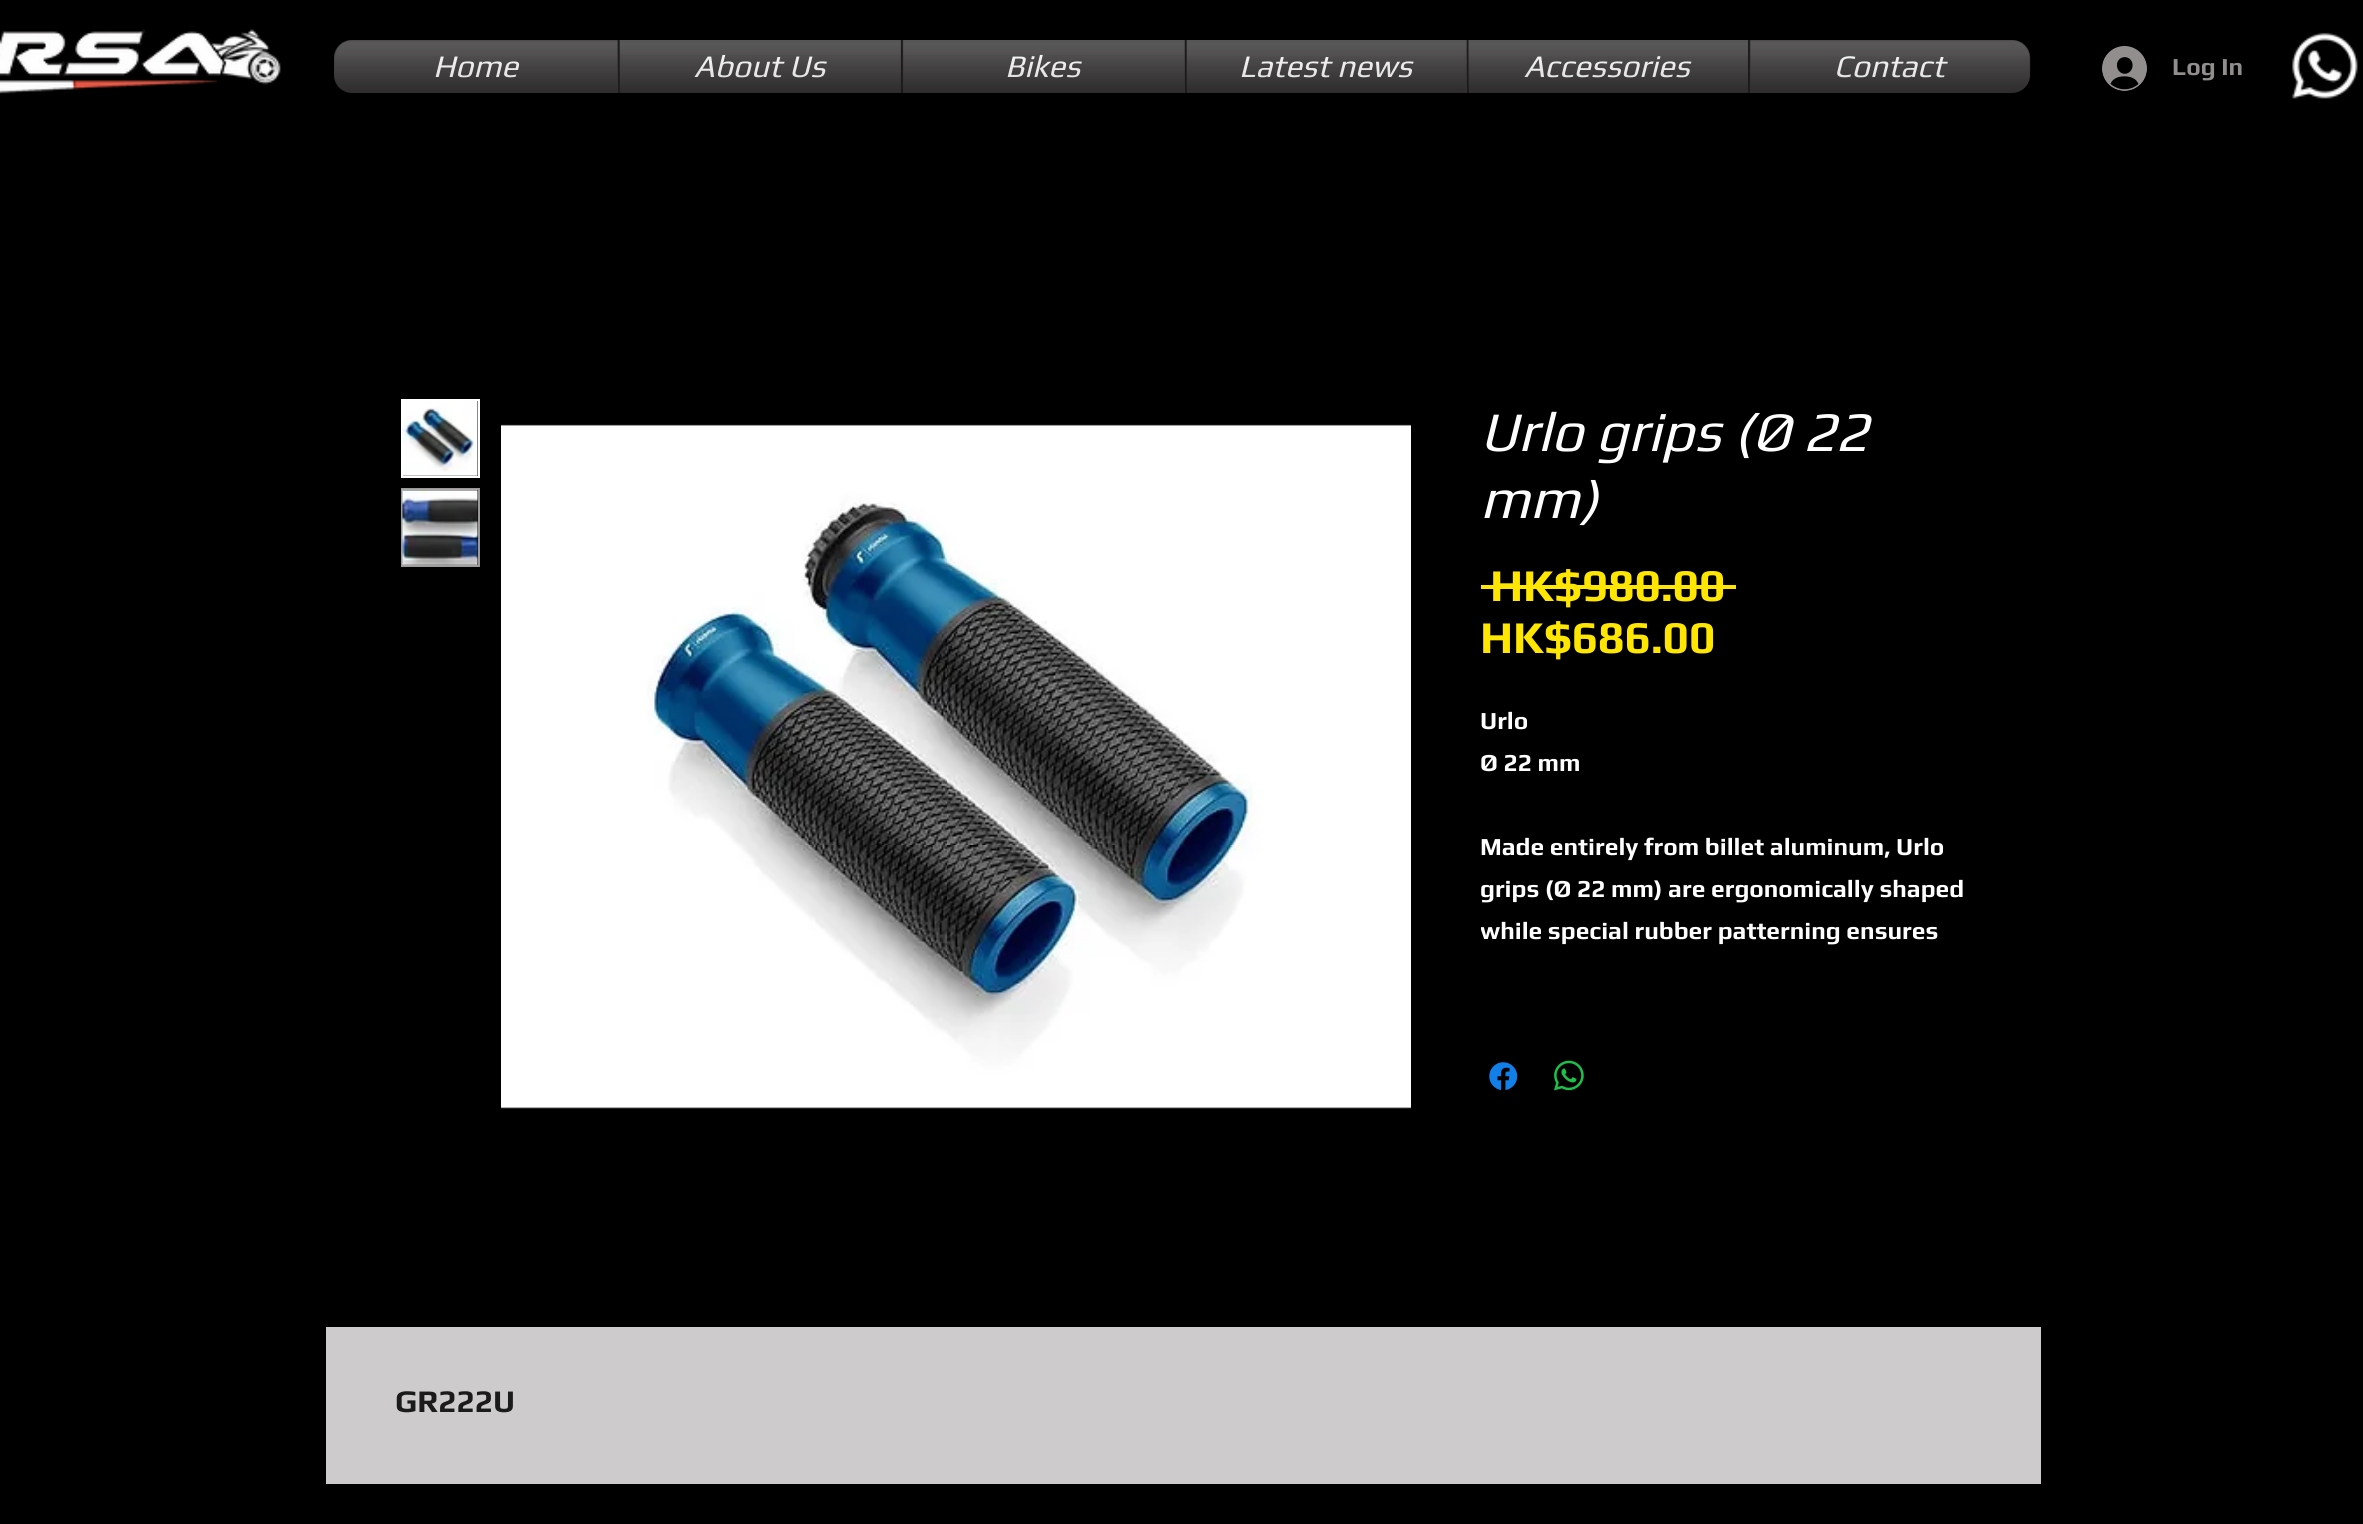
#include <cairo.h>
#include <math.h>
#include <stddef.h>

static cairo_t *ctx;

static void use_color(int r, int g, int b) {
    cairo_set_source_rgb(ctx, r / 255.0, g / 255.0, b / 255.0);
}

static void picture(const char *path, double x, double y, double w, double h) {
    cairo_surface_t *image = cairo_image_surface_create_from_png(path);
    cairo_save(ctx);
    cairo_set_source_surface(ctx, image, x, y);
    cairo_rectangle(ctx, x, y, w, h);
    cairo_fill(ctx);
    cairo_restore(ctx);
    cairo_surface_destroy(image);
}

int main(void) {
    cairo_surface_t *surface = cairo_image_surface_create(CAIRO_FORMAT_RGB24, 2363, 1524);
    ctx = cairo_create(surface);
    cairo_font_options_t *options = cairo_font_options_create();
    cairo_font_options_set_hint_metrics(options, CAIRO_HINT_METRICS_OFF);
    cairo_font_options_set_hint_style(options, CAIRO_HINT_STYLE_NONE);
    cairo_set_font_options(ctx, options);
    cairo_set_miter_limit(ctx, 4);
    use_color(0, 0, 0);
    cairo_paint(ctx);
    picture("img1.png", 0, 29, 281, 65);
    picture("img2.png", 334, 40, 1697, 48);
    picture("img3.png", 334, 75, 1696, 17);
    use_color(49, 47, 47);
    cairo_new_path(ctx);
    cairo_move_to(ctx, 352, 40);
    cairo_line_to(ctx, 618, 40);
    cairo_line_to(ctx, 618, 93);
    cairo_line_to(ctx, 352, 93);
    cairo_curve_to(ctx, 342, 93, 334, 85, 334, 75);
    cairo_line_to(ctx, 334, 58);
    cairo_curve_to(ctx, 334, 48, 342, 40, 352, 40);
    cairo_close_path(ctx);
    cairo_fill(ctx);
    cairo_select_font_face(ctx, "Play", CAIRO_FONT_SLANT_ITALIC, CAIRO_FONT_WEIGHT_NORMAL);
    cairo_set_font_size(ctx, 31.5);
    use_color(255, 255, 255);
    cairo_move_to(ctx, 433, 77);
    cairo_show_text(ctx, "Home");
    picture("img4.png", 334, 40, 284, 52);
    picture("img5.png", 334, 56, 283, 36);
    use_color(49, 47, 47);
    cairo_rectangle(ctx, 620, 48, 281, 45);
    cairo_fill(ctx);
    use_color(28, 27, 27);
    cairo_rectangle(ctx, 618, 40, 2, 53);
    cairo_fill(ctx);
    use_color(255, 255, 255);
    cairo_move_to(ctx, 694, 77);
    cairo_show_text(ctx, "About Us");
    picture("img6.png", 619, 40, 282, 52);
    picture("img7.png", 620, 55, 281, 38);
    use_color(49, 47, 47);
    cairo_rectangle(ctx, 903, 48, 282, 45);
    cairo_fill(ctx);
    use_color(28, 27, 27);
    cairo_rectangle(ctx, 901, 40, 2, 53);
    cairo_fill(ctx);
    use_color(255, 255, 255);
    cairo_move_to(ctx, 1005, 77);
    cairo_show_text(ctx, "Bikes");
    picture("img8.png", 902, 40, 283, 52);
    picture("img9.png", 903, 55, 282, 38);
    use_color(49, 47, 47);
    cairo_rectangle(ctx, 1187, 48, 280, 45);
    cairo_fill(ctx);
    use_color(28, 27, 27);
    cairo_rectangle(ctx, 1185, 40, 2, 53);
    cairo_fill(ctx);
    use_color(255, 255, 255);
    cairo_move_to(ctx, 1239, 77);
    cairo_show_text(ctx, "Latest news");
    picture("img10.png", 1186, 40, 281, 52);
    picture("img11.png", 1187, 56, 280, 37);
    use_color(49, 47, 47);
    cairo_rectangle(ctx, 1469, 48, 279, 45);
    cairo_fill(ctx);
    use_color(28, 27, 27);
    cairo_rectangle(ctx, 1467, 40, 2, 53);
    cairo_fill(ctx);
    use_color(255, 255, 255);
    cairo_move_to(ctx, 1524, 77);
    cairo_show_text(ctx, "Accessories");
    picture("img12.png", 1468, 40, 280, 52);
    picture("img13.png", 1468, 56, 280, 37);
    use_color(49, 47, 47);
    cairo_new_path(ctx);
    cairo_move_to(ctx, 1748, 40);
    cairo_line_to(ctx, 2012, 40);
    cairo_curve_to(ctx, 2022, 40, 2030, 48, 2030, 58);
    cairo_line_to(ctx, 2030, 75);
    cairo_curve_to(ctx, 2030, 85, 2022, 93, 2012, 93);
    cairo_line_to(ctx, 1748, 93);
    cairo_close_path(ctx);
    cairo_fill(ctx);
    use_color(28, 27, 27);
    cairo_rectangle(ctx, 1748, 40, 2, 53);
    cairo_fill(ctx);
    use_color(255, 255, 255);
    cairo_move_to(ctx, 1834, 77);
    cairo_show_text(ctx, "Contact");
    picture("img14.png", 1749, 40, 281, 52);
    picture("img15.png", 1750, 56, 280, 36);
    picture("img16.png", 2102, 46, 45, 45);
    cairo_select_font_face(ctx, "Play", CAIRO_FONT_SLANT_NORMAL, CAIRO_FONT_WEIGHT_BOLD);
    cairo_set_font_size(ctx, 24.5);
    use_color(147, 142, 142);
    cairo_move_to(ctx, 2172, 75);
    cairo_show_text(ctx, "Log In");
    picture("img17.png", 2292, 32, 66, 67);
    cairo_rectangle(ctx, 402, 400, 77, 77);
    use_color(255, 255, 255);
    cairo_stroke(ctx);
    picture("img18.png", 402, 401, 76, 75);
    cairo_rectangle(ctx, 402, 489, 77, 77);
    use_color(155, 153, 153);
    cairo_stroke(ctx);
    picture("img19.png", 402, 489, 77, 77);
    picture("img20.png", 501, 424, 910, 685);
    cairo_select_font_face(ctx, "Play", CAIRO_FONT_SLANT_ITALIC, CAIRO_FONT_WEIGHT_NORMAL);
    cairo_set_font_size(ctx, 56);
    use_color(255, 255, 255);
    cairo_move_to(ctx, 1480, 451);
    cairo_show_text(ctx, "Urlo grips (Ø 22");
    cairo_move_to(ctx, 1480, 518);
    cairo_show_text(ctx, "mm)");
    cairo_select_font_face(ctx, "Play", CAIRO_FONT_SLANT_NORMAL, CAIRO_FONT_WEIGHT_BOLD);
    cairo_set_font_size(ctx, 45.5);
    use_color(255, 230, 0);
    cairo_move_to(ctx, 1490, 601);
    cairo_show_text(ctx, "HK$980.00");
    cairo_rectangle(ctx, 1481, 585, 255, 4);
    cairo_fill(ctx);
    cairo_move_to(ctx, 1480, 653);
    cairo_show_text(ctx, "HK$686.00");
    cairo_set_font_size(ctx, 24.5);
    use_color(255, 255, 255);
    cairo_move_to(ctx, 1480, 729);
    cairo_show_text(ctx, "Urlo");
    cairo_move_to(ctx, 1480, 771);
    cairo_show_text(ctx, "Ø 22 mm");
    cairo_move_to(ctx, 1480, 855);
    cairo_show_text(ctx, "Made entirely from billet aluminum, Urlo");
    cairo_save(ctx);
    cairo_rectangle(ctx, 1481, 698, 490, 252);
    cairo_clip(ctx);
    cairo_move_to(ctx, 1480, 897);
    cairo_show_text(ctx, "grips (Ø 22 mm) are ergonomically shaped");
    cairo_move_to(ctx, 1480, 939);
    cairo_show_text(ctx, "while special rubber patterning ensures");
    cairo_restore(ctx);
    picture("img21.png", 1489, 1062, 29, 28);
    picture("img22.png", 1554, 1060, 30, 31);
    use_color(205, 203, 203);
    cairo_rectangle(ctx, 326, 1327, 1715, 157);
    cairo_fill(ctx);
    cairo_set_font_size(ctx, 31.5);
    use_color(28, 27, 27);
    cairo_move_to(ctx, 395, 1412);
    cairo_show_text(ctx, "GR222U");
    cairo_surface_write_to_png(surface, "result.png");
    cairo_font_options_destroy(options);
    cairo_destroy(ctx);
    cairo_surface_destroy(surface);
    return 0;
}
